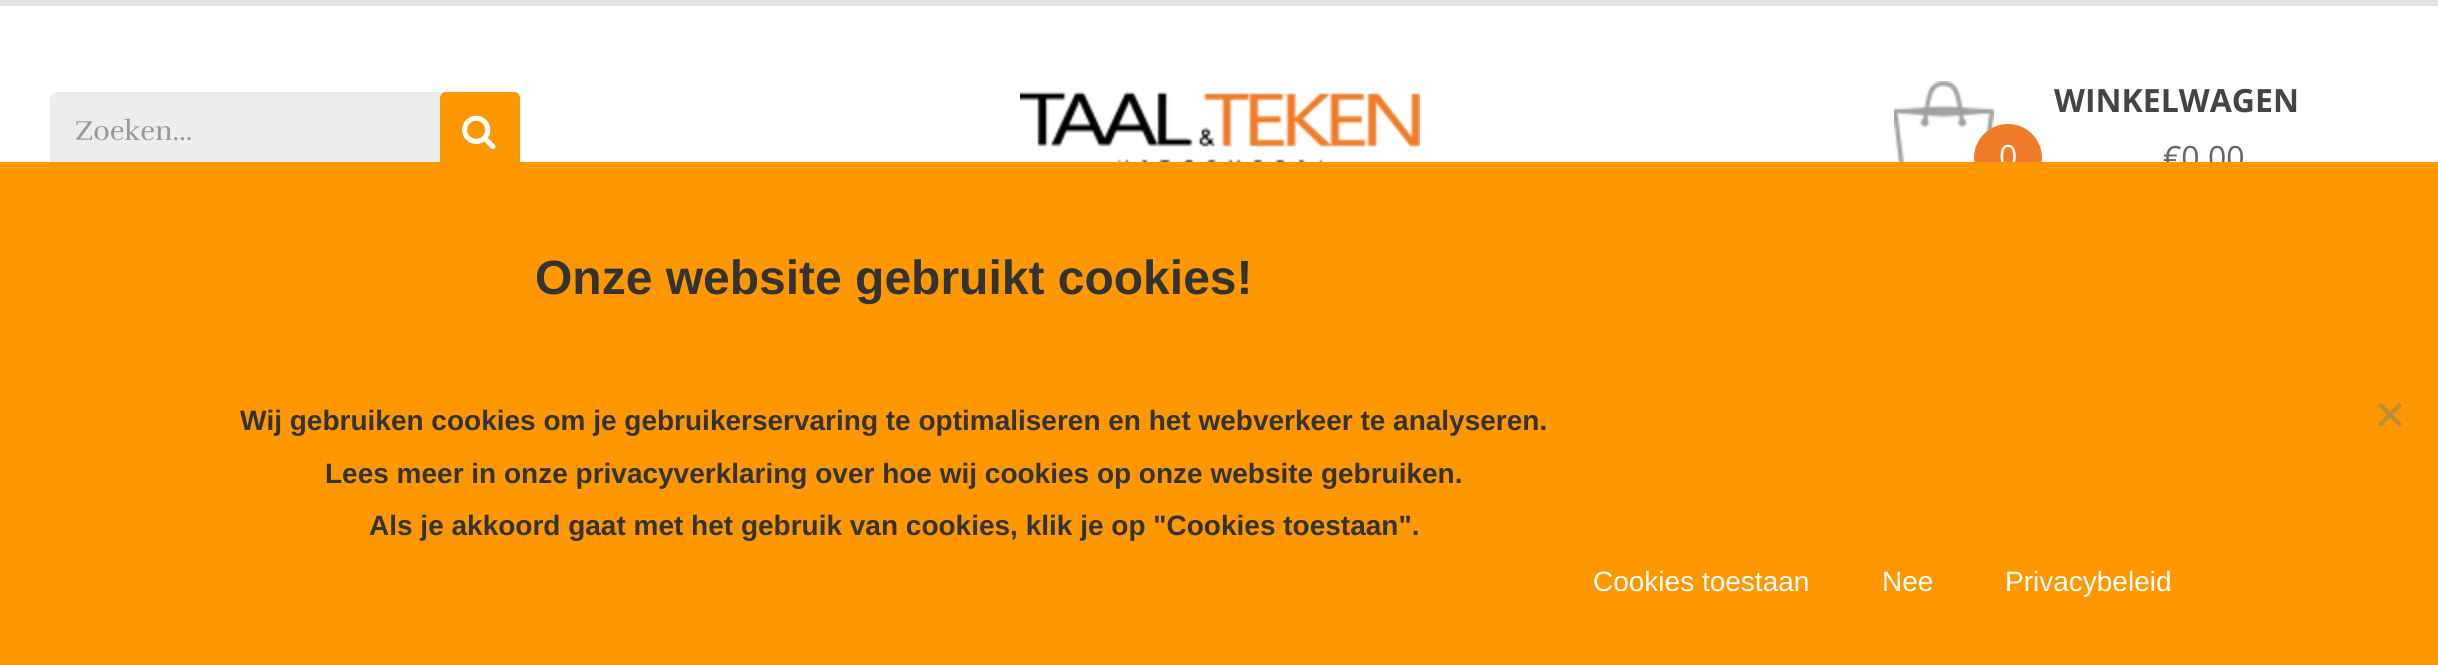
#include <cairo.h>
#include <math.h>
#include <stddef.h>

static cairo_t *ctx;

static void use_color(int r, int g, int b) {
    cairo_set_source_rgb(ctx, r / 255.0, g / 255.0, b / 255.0);
}

static void round_rect(double x, double y, double w, double h, double r) {
    cairo_new_sub_path(ctx);
    cairo_arc(ctx, x + w - r, y + h - r, r, 0, M_PI / 2);
    cairo_arc(ctx, x + r, y + h - r, r, M_PI / 2, M_PI);
    cairo_arc(ctx, x + r, y + r, r, M_PI, 1.5 * M_PI);
    cairo_arc(ctx, x + w - r, y + r, r, 1.5 * M_PI, 2 * M_PI);
    cairo_close_path(ctx);
}

static void picture(const char *path, double x, double y, double w, double h) {
    cairo_surface_t *image = cairo_image_surface_create_from_png(path);
    cairo_save(ctx);
    cairo_set_source_surface(ctx, image, x, y);
    cairo_rectangle(ctx, x, y, w, h);
    cairo_fill(ctx);
    cairo_restore(ctx);
    cairo_surface_destroy(image);
}

int main(void) {
    cairo_surface_t *surface = cairo_image_surface_create(CAIRO_FORMAT_RGB24, 2438, 665);
    ctx = cairo_create(surface);
    cairo_font_options_t *options = cairo_font_options_create();
    cairo_font_options_set_hint_metrics(options, CAIRO_HINT_METRICS_OFF);
    cairo_font_options_set_hint_style(options, CAIRO_HINT_STYLE_NONE);
    cairo_set_font_options(ctx, options);
    cairo_set_miter_limit(ctx, 4);
    use_color(255, 255, 255);
    cairo_paint(ctx);
    use_color(227, 227, 227);
    cairo_rectangle(ctx, 0, 0, 2438, 6);
    cairo_fill(ctx);
    use_color(237, 237, 237);
    round_rect(50, 92, 470, 80, 8);
    cairo_fill(ctx);
    round_rect(50, 92, 390, 80, 8);
    cairo_fill(ctx);
    cairo_select_font_face(ctx, "Rufina", CAIRO_FONT_SLANT_NORMAL, CAIRO_FONT_WEIGHT_NORMAL);
    cairo_set_font_size(ctx, 28);
    use_color(153, 153, 153);
    cairo_move_to(ctx, 75, 140);
    cairo_show_text(ctx, "Zoeken…");
    use_color(254, 151, 0);
    round_rect(440, 92, 80, 80, 6);
    cairo_fill(ctx);
    picture("img1.png", 462, 115, 34, 35);
    picture("img2.png", 1020, 91, 400, 71);
    picture("img3.png", 1894, 81, 100, 81);
    cairo_select_font_face(ctx, "Open Sans", CAIRO_FONT_SLANT_NORMAL, CAIRO_FONT_WEIGHT_BOLD);
    cairo_set_font_size(ctx, 32);
    use_color(68, 68, 68);
    cairo_move_to(ctx, 2054, 112);
    cairo_show_text(ctx, "WINKELWAGEN");
    use_color(240, 124, 41);
    cairo_new_path(ctx);
    cairo_arc(ctx, 2008, 158, 34, 0, 2 * M_PI);
    cairo_fill(ctx);
    cairo_select_font_face(ctx, "Open Sans", CAIRO_FONT_SLANT_NORMAL, CAIRO_FONT_WEIGHT_NORMAL);
    use_color(255, 255, 255);
    cairo_move_to(ctx, 1999, 168);
    cairo_show_text(ctx, "0");
    use_color(102, 102, 102);
    cairo_move_to(ctx, 2163, 169);
    cairo_show_text(ctx, "€0.00");
    use_color(254, 151, 0);
    cairo_rectangle(ctx, 0, 162, 2438, 503);
    cairo_fill(ctx);
    cairo_select_font_face(ctx, "Liberation Sans", CAIRO_FONT_SLANT_NORMAL, CAIRO_FONT_WEIGHT_BOLD);
    cairo_set_font_size(ctx, 48);
    use_color(51, 51, 51);
    cairo_move_to(ctx, 535, 294);
    cairo_show_text(ctx, "Onze website gebruikt cookies!");
    cairo_set_font_size(ctx, 28);
    cairo_move_to(ctx, 240, 430);
    cairo_show_text(ctx, "Wij gebruiken cookies om je gebruikerservaring te optimaliseren en het webverkeer te analyseren.");
    cairo_move_to(ctx, 325, 483);
    cairo_show_text(ctx, "Lees meer in onze privacyverklaring over hoe wij cookies op onze website gebruiken.");
    cairo_move_to(ctx, 369, 535);
    cairo_show_text(ctx, "Als je akkoord gaat met het gebruik van cookies, klik je op \"Cookies toestaan\".");
    use_color(191, 140, 64);
    cairo_new_path(ctx);
    cairo_move_to(ctx, 2399, 402.5);
    cairo_line_to(ctx, 2402, 405.5);
    cairo_line_to(ctx, 2381, 427);
    cairo_line_to(ctx, 2378, 424);
    cairo_close_path(ctx);
    cairo_fill(ctx);
    cairo_new_path(ctx);
    cairo_move_to(ctx, 2378, 405.5);
    cairo_line_to(ctx, 2381, 402.5);
    cairo_line_to(ctx, 2402, 424);
    cairo_line_to(ctx, 2399, 427);
    cairo_close_path(ctx);
    cairo_fill(ctx);
    cairo_select_font_face(ctx, "Liberation Sans", CAIRO_FONT_SLANT_NORMAL, CAIRO_FONT_WEIGHT_NORMAL);
    use_color(255, 255, 255);
    cairo_move_to(ctx, 1593, 591);
    cairo_show_text(ctx, "Cookies toestaan");
    cairo_move_to(ctx, 1882, 591);
    cairo_show_text(ctx, "Nee");
    cairo_move_to(ctx, 2005, 591);
    cairo_show_text(ctx, "Privacybeleid");
    cairo_surface_write_to_png(surface, "result.png");
    cairo_font_options_destroy(options);
    cairo_destroy(ctx);
    cairo_surface_destroy(surface);
    return 0;
}
